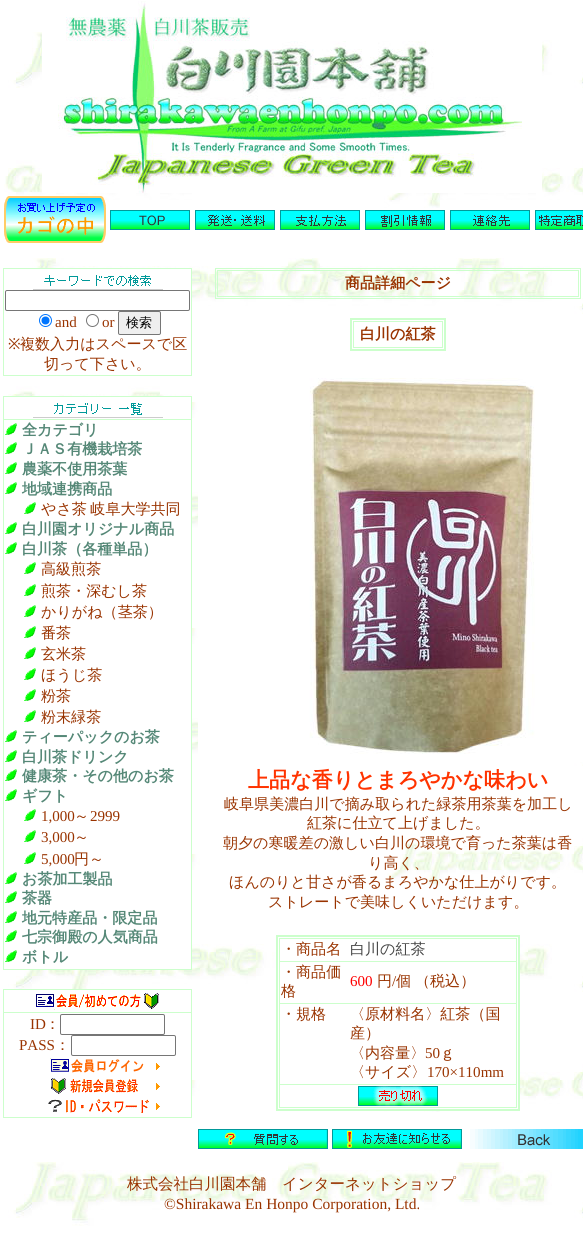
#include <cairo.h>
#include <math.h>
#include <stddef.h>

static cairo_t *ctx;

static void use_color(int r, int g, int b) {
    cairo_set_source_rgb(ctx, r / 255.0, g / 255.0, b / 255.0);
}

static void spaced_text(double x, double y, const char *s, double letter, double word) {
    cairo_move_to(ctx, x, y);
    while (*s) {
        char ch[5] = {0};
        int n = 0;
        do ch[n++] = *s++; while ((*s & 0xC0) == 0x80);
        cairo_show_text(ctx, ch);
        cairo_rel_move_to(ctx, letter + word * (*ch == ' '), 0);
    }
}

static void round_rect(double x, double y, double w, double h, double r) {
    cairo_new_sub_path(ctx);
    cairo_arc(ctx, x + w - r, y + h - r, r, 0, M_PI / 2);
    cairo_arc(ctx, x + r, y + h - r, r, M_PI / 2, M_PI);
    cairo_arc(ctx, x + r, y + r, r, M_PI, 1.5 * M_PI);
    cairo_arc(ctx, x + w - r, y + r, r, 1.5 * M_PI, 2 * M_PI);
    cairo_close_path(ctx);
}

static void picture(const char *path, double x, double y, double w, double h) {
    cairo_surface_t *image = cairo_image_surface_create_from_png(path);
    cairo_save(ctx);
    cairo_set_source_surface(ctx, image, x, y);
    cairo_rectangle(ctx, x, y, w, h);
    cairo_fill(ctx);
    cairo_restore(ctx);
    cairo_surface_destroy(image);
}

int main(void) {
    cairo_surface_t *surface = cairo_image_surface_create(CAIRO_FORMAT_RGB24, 583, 1239);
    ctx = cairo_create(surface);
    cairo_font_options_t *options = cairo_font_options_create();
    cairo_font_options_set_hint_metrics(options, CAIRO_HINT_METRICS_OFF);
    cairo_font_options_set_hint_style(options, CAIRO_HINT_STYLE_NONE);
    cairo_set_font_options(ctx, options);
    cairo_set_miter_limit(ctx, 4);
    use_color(255, 255, 255);
    cairo_paint(ctx);
    picture("img1.png", 4, 32, 579, 1194);
    picture("img2.png", 42, 1, 500, 192);
    picture("img3.png", 4, 196, 102, 47);
    picture("img4.png", 110, 210, 80, 20);
    picture("img5.png", 195, 210, 80, 20);
    picture("img6.png", 280, 210, 80, 20);
    picture("img7.png", 365, 210, 80, 20);
    picture("img8.png", 450, 210, 80, 20);
    picture("img9.png", 535, 210, 48, 20);
    use_color(204, 255, 204);
    cairo_rectangle(ctx, 3, 268, 189, 108);
    cairo_fill(ctx);
    use_color(255, 255, 255);
    cairo_rectangle(ctx, 4, 269, 187, 106);
    cairo_fill(ctx);
    picture("img10.png", 33, 275, 130, 15);
    round_rect(5.5, 290.5, 184, 20, 1.5);
    use_color(118, 118, 118);
    cairo_set_line_width(ctx, 1);
    cairo_stroke(ctx);
    cairo_arc(ctx, 45.5, 320.5, 6, 0, 2 * M_PI);
    use_color(0, 117, 255);
    cairo_stroke(ctx);
    cairo_arc(ctx, 45.5, 320.5, 4, 0, 2 * M_PI);
    cairo_fill(ctx);
    cairo_select_font_face(ctx, "Liberation Serif", CAIRO_FONT_SLANT_NORMAL, CAIRO_FONT_WEIGHT_NORMAL);
    cairo_set_font_size(ctx, 15.05);
    use_color(153, 51, 0);
    cairo_move_to(ctx, 55, 327);
    cairo_show_text(ctx, "and");
    cairo_new_path(ctx);
    cairo_arc(ctx, 92.5, 320.5, 6, 0, 2 * M_PI);
    use_color(118, 118, 118);
    cairo_stroke(ctx);
    use_color(153, 51, 0);
    cairo_move_to(ctx, 102, 327);
    cairo_show_text(ctx, "or");
    use_color(239, 239, 239);
    round_rect(118.5, 311.5, 42, 23, 1.5);
    cairo_fill_preserve(ctx);
    use_color(118, 118, 118);
    cairo_stroke(ctx);
    cairo_select_font_face(ctx, "WenQuanYi Zen Hei Medium", CAIRO_FONT_SLANT_NORMAL, CAIRO_FONT_WEIGHT_NORMAL);
    cairo_set_font_size(ctx, 13);
    use_color(0, 0, 0);
    cairo_move_to(ctx, 126, 327);
    cairo_show_text(ctx, "検索");
    cairo_select_font_face(ctx, "Noto Sans", CAIRO_FONT_SLANT_NORMAL, CAIRO_FONT_WEIGHT_NORMAL);
    cairo_set_font_size(ctx, 15.05);
    use_color(153, 51, 0);
    cairo_move_to(ctx, 8, 349);
    cairo_show_text(ctx, "※");
    cairo_select_font_face(ctx, "WenQuanYi Zen Hei Medium", CAIRO_FONT_SLANT_NORMAL, CAIRO_FONT_WEIGHT_NORMAL);
    cairo_move_to(ctx, 20, 349);
    cairo_show_text(ctx, "複数入力はスペースで区");
    cairo_move_to(ctx, 44, 369);
    cairo_show_text(ctx, "切って下さい。");
    use_color(204, 255, 204);
    cairo_rectangle(ctx, 3, 396, 189, 574);
    cairo_fill(ctx);
    use_color(255, 255, 255);
    cairo_rectangle(ctx, 4, 397, 187, 22);
    cairo_fill(ctx);
    picture("img11.png", 33, 403, 130, 15);
    cairo_rectangle(ctx, 4, 420, 187, 549);
    cairo_fill(ctx);
    picture("img12.png", 5, 423, 12, 12);
    cairo_select_font_face(ctx, "WenQuanYi Zen Hei", CAIRO_FONT_SLANT_NORMAL, CAIRO_FONT_WEIGHT_BOLD);
    use_color(85, 136, 119);
    cairo_move_to(ctx, 22, 435);
    cairo_show_text(ctx, "全カテゴリ");
    picture("img12.png", 5, 442, 12, 12);
    cairo_move_to(ctx, 22, 454);
    cairo_show_text(ctx, "ＪＡＳ有機栽培茶");
    picture("img12.png", 5, 462, 12, 12);
    cairo_move_to(ctx, 22, 474);
    cairo_show_text(ctx, "農薬不使用茶葉");
    picture("img12.png", 5, 482, 12, 12);
    cairo_move_to(ctx, 22, 494);
    cairo_show_text(ctx, "地域連携商品");
    picture("img12.png", 24, 502, 12, 12);
    cairo_select_font_face(ctx, "WenQuanYi Zen Hei Medium", CAIRO_FONT_SLANT_NORMAL, CAIRO_FONT_WEIGHT_NORMAL);
    use_color(153, 51, 0);
    spaced_text(41, 514, "やさ茶 岐阜大学共同", 0, -1);
    picture("img12.png", 5, 522, 12, 12);
    cairo_select_font_face(ctx, "WenQuanYi Zen Hei", CAIRO_FONT_SLANT_NORMAL, CAIRO_FONT_WEIGHT_BOLD);
    use_color(85, 136, 119);
    cairo_move_to(ctx, 22, 534);
    cairo_show_text(ctx, "白川園オリジナル商品");
    picture("img12.png", 5, 542, 12, 12);
    cairo_move_to(ctx, 22, 554);
    cairo_show_text(ctx, "白川茶（各種単品）");
    picture("img12.png", 24, 562, 12, 12);
    cairo_select_font_face(ctx, "WenQuanYi Zen Hei Medium", CAIRO_FONT_SLANT_NORMAL, CAIRO_FONT_WEIGHT_NORMAL);
    use_color(153, 51, 0);
    cairo_move_to(ctx, 41, 574);
    cairo_show_text(ctx, "高級煎茶");
    picture("img12.png", 24, 584, 12, 12);
    cairo_move_to(ctx, 41, 596);
    cairo_show_text(ctx, "煎茶・深むし茶");
    picture("img12.png", 24, 605, 12, 12);
    cairo_move_to(ctx, 41, 617);
    cairo_show_text(ctx, "かりがね（茎茶）");
    picture("img12.png", 24, 626, 12, 12);
    cairo_move_to(ctx, 41, 638);
    cairo_show_text(ctx, "番茶");
    picture("img12.png", 24, 647, 12, 12);
    cairo_move_to(ctx, 41, 659);
    cairo_show_text(ctx, "玄米茶");
    picture("img12.png", 24, 668, 12, 12);
    cairo_move_to(ctx, 41, 680);
    cairo_show_text(ctx, "ほうじ茶");
    picture("img12.png", 24, 689, 12, 12);
    cairo_move_to(ctx, 41, 701);
    cairo_show_text(ctx, "粉茶");
    picture("img12.png", 24, 710, 12, 12);
    cairo_move_to(ctx, 41, 722);
    cairo_show_text(ctx, "粉末緑茶");
    picture("img12.png", 5, 730, 12, 12);
    cairo_select_font_face(ctx, "WenQuanYi Zen Hei", CAIRO_FONT_SLANT_NORMAL, CAIRO_FONT_WEIGHT_BOLD);
    use_color(85, 136, 119);
    cairo_move_to(ctx, 22, 742);
    cairo_show_text(ctx, "ティーパックのお茶");
    picture("img12.png", 5, 750, 12, 12);
    cairo_move_to(ctx, 22, 762);
    cairo_show_text(ctx, "白川茶ドリンク");
    picture("img12.png", 5, 769, 12, 12);
    cairo_move_to(ctx, 22, 781);
    cairo_show_text(ctx, "健康茶・その他のお茶");
    picture("img12.png", 5, 789, 12, 12);
    cairo_move_to(ctx, 22, 801);
    cairo_show_text(ctx, "ギフト");
    picture("img12.png", 24, 809, 12, 12);
    cairo_select_font_face(ctx, "Liberation Serif", CAIRO_FONT_SLANT_NORMAL, CAIRO_FONT_WEIGHT_NORMAL);
    use_color(153, 51, 0);
    cairo_move_to(ctx, 41, 821);
    cairo_show_text(ctx, "1,000");
    cairo_select_font_face(ctx, "WenQuanYi Zen Hei Medium", CAIRO_FONT_SLANT_NORMAL, CAIRO_FONT_WEIGHT_NORMAL);
    cairo_move_to(ctx, 74, 821);
    cairo_show_text(ctx, "～");
    cairo_select_font_face(ctx, "Liberation Serif", CAIRO_FONT_SLANT_NORMAL, CAIRO_FONT_WEIGHT_NORMAL);
    cairo_move_to(ctx, 90, 821);
    cairo_show_text(ctx, "2999");
    picture("img12.png", 24, 830, 12, 12);
    cairo_move_to(ctx, 41, 842);
    cairo_show_text(ctx, "3,000");
    cairo_select_font_face(ctx, "WenQuanYi Zen Hei Medium", CAIRO_FONT_SLANT_NORMAL, CAIRO_FONT_WEIGHT_NORMAL);
    cairo_move_to(ctx, 74, 842);
    cairo_show_text(ctx, "～");
    picture("img12.png", 24, 852, 12, 12);
    cairo_select_font_face(ctx, "Liberation Serif", CAIRO_FONT_SLANT_NORMAL, CAIRO_FONT_WEIGHT_NORMAL);
    cairo_move_to(ctx, 41, 864);
    cairo_show_text(ctx, "5,000");
    cairo_select_font_face(ctx, "WenQuanYi Zen Hei Medium", CAIRO_FONT_SLANT_NORMAL, CAIRO_FONT_WEIGHT_NORMAL);
    cairo_move_to(ctx, 74, 864);
    cairo_show_text(ctx, "円～");
    picture("img12.png", 5, 872, 12, 12);
    cairo_select_font_face(ctx, "WenQuanYi Zen Hei", CAIRO_FONT_SLANT_NORMAL, CAIRO_FONT_WEIGHT_BOLD);
    use_color(85, 136, 119);
    cairo_move_to(ctx, 22, 884);
    cairo_show_text(ctx, "お茶加工製品");
    picture("img12.png", 5, 891, 12, 12);
    cairo_move_to(ctx, 22, 903);
    cairo_show_text(ctx, "茶器");
    picture("img12.png", 5, 911, 12, 12);
    cairo_move_to(ctx, 22, 923);
    cairo_show_text(ctx, "地元特産品・限定品");
    picture("img12.png", 5, 930, 12, 12);
    cairo_move_to(ctx, 22, 942);
    cairo_show_text(ctx, "七宗御殿の人気商品");
    picture("img12.png", 5, 950, 12, 12);
    cairo_move_to(ctx, 22, 962);
    cairo_show_text(ctx, "ボトル");
    use_color(204, 255, 204);
    cairo_rectangle(ctx, 3, 989, 189, 129);
    cairo_fill(ctx);
    use_color(255, 255, 255);
    cairo_rectangle(ctx, 4, 990, 187, 22);
    cairo_fill(ctx);
    picture("img13.png", 36, 993, 123, 17);
    cairo_rectangle(ctx, 4, 1013, 187, 104);
    cairo_fill(ctx);
    cairo_select_font_face(ctx, "Liberation Serif", CAIRO_FONT_SLANT_NORMAL, CAIRO_FONT_WEIGHT_NORMAL);
    use_color(153, 51, 0);
    cairo_move_to(ctx, 30, 1029);
    cairo_show_text(ctx, "ID");
    cairo_select_font_face(ctx, "WenQuanYi Zen Hei Medium", CAIRO_FONT_SLANT_NORMAL, CAIRO_FONT_WEIGHT_NORMAL);
    cairo_move_to(ctx, 45, 1029);
    cairo_show_text(ctx, "：");
    round_rect(60.5, 1014.5, 104, 20, 1.5);
    use_color(118, 118, 118);
    cairo_stroke(ctx);
    cairo_select_font_face(ctx, "Liberation Serif", CAIRO_FONT_SLANT_NORMAL, CAIRO_FONT_WEIGHT_NORMAL);
    use_color(153, 51, 0);
    cairo_move_to(ctx, 19, 1050);
    cairo_show_text(ctx, "PASS");
    cairo_select_font_face(ctx, "WenQuanYi Zen Hei Medium", CAIRO_FONT_SLANT_NORMAL, CAIRO_FONT_WEIGHT_NORMAL);
    cairo_move_to(ctx, 55, 1050);
    cairo_show_text(ctx, "：");
    round_rect(71.5, 1035.5, 104, 20, 1.5);
    use_color(118, 118, 118);
    cairo_stroke(ctx);
    picture("img14.png", 50, 1058, 110, 15);
    picture("img15.png", 51, 1078, 109, 16);
    picture("img16.png", 48, 1099, 112, 14);
    cairo_rectangle(ctx, 215.5, 268.5, 365, 30);
    use_color(204, 255, 204);
    cairo_stroke(ctx);
    cairo_rectangle(ctx, 217.5, 270.5, 361, 26);
    cairo_stroke(ctx);
    cairo_select_font_face(ctx, "WenQuanYi Zen Hei", CAIRO_FONT_SLANT_NORMAL, CAIRO_FONT_WEIGHT_BOLD);
    use_color(153, 51, 0);
    cairo_move_to(ctx, 345, 288);
    cairo_show_text(ctx, "商品詳細ページ");
    use_color(204, 255, 204);
    cairo_rectangle(ctx, 350, 318, 96, 33);
    cairo_fill(ctx);
    use_color(255, 255, 255);
    cairo_rectangle(ctx, 352, 320, 92, 29);
    cairo_fill(ctx);
    use_color(204, 255, 204);
    cairo_rectangle(ctx, 353, 321, 90, 27);
    cairo_fill(ctx);
    use_color(255, 255, 255);
    cairo_rectangle(ctx, 354, 322, 88, 25);
    cairo_fill(ctx);
    use_color(153, 51, 0);
    cairo_move_to(ctx, 360, 339);
    cairo_show_text(ctx, "白川の紅茶");
    picture("img17.png", 198, 378, 385, 384);
    cairo_set_font_size(ctx, 21.1);
    use_color(255, 51, 0);
    cairo_move_to(ctx, 248, 787);
    cairo_show_text(ctx, "上品な香りとまろやかな味わい");
    cairo_select_font_face(ctx, "WenQuanYi Zen Hei Medium", CAIRO_FONT_SLANT_NORMAL, CAIRO_FONT_WEIGHT_NORMAL);
    cairo_set_font_size(ctx, 15.05);
    use_color(153, 51, 0);
    cairo_move_to(ctx, 224, 809);
    cairo_show_text(ctx, "岐阜県美濃白川で摘み取られた緑茶用茶葉を加工し");
    cairo_move_to(ctx, 307, 828);
    cairo_show_text(ctx, "紅茶に仕立て上げました。");
    cairo_move_to(ctx, 223, 848);
    cairo_show_text(ctx, "朝夕の寒暖差の激しい白川の環境で育った茶葉は香");
    cairo_move_to(ctx, 368, 868);
    cairo_show_text(ctx, "り高く、");
    cairo_move_to(ctx, 229, 887);
    cairo_show_text(ctx, "ほんのりと甘さが香るまろやかな仕上がりです。");
    cairo_move_to(ctx, 268, 907);
    cairo_show_text(ctx, "ストレートで美味しくいただけます。");
    use_color(204, 255, 204);
    cairo_rectangle(ctx, 276, 935, 244, 176);
    cairo_fill(ctx);
    use_color(255, 255, 255);
    cairo_rectangle(ctx, 278, 937, 240, 172);
    cairo_fill(ctx);
    use_color(204, 255, 204);
    cairo_rectangle(ctx, 279, 938, 238, 170);
    cairo_fill(ctx);
    use_color(255, 255, 255);
    cairo_rectangle(ctx, 280, 939, 236, 22);
    cairo_fill(ctx);
    use_color(153, 51, 0);
    cairo_move_to(ctx, 281, 954);
    cairo_show_text(ctx, "・商品名");
    use_color(68, 68, 68);
    cairo_move_to(ctx, 350, 954);
    cairo_show_text(ctx, "白川の紅茶");
    use_color(255, 255, 255);
    cairo_rectangle(ctx, 280, 962, 236, 41);
    cairo_fill(ctx);
    use_color(153, 51, 0);
    cairo_move_to(ctx, 281, 977);
    cairo_show_text(ctx, "・商品価");
    cairo_move_to(ctx, 281, 996);
    cairo_show_text(ctx, "格");
    cairo_select_font_face(ctx, "Liberation Serif", CAIRO_FONT_SLANT_NORMAL, CAIRO_FONT_WEIGHT_NORMAL);
    use_color(255, 0, 0);
    cairo_move_to(ctx, 350, 986);
    cairo_show_text(ctx, "600");
    cairo_select_font_face(ctx, "WenQuanYi Zen Hei Medium", CAIRO_FONT_SLANT_NORMAL, CAIRO_FONT_WEIGHT_NORMAL);
    use_color(153, 51, 0);
    cairo_move_to(ctx, 377, 986);
    cairo_show_text(ctx, "円");
    cairo_select_font_face(ctx, "Liberation Serif", CAIRO_FONT_SLANT_NORMAL, CAIRO_FONT_WEIGHT_NORMAL);
    cairo_move_to(ctx, 392, 986);
    cairo_show_text(ctx, "/");
    cairo_select_font_face(ctx, "WenQuanYi Zen Hei Medium", CAIRO_FONT_SLANT_NORMAL, CAIRO_FONT_WEIGHT_NORMAL);
    cairo_move_to(ctx, 396, 986);
    cairo_show_text(ctx, "個");
    cairo_move_to(ctx, 415, 986);
    cairo_show_text(ctx, "（税込）");
    use_color(255, 255, 255);
    cairo_rectangle(ctx, 280, 1004, 236, 80);
    cairo_fill(ctx);
    use_color(153, 51, 0);
    cairo_move_to(ctx, 281, 1019);
    cairo_show_text(ctx, "・規格");
    cairo_move_to(ctx, 350, 1019);
    cairo_show_text(ctx, "〈原材料名〉紅茶（国");
    cairo_move_to(ctx, 350, 1038);
    cairo_show_text(ctx, "産）");
    cairo_move_to(ctx, 350, 1058);
    cairo_show_text(ctx, "〈内容量〉");
    cairo_select_font_face(ctx, "Liberation Serif", CAIRO_FONT_SLANT_NORMAL, CAIRO_FONT_WEIGHT_NORMAL);
    cairo_move_to(ctx, 425, 1058);
    cairo_show_text(ctx, "50");
    cairo_select_font_face(ctx, "WenQuanYi Zen Hei Medium", CAIRO_FONT_SLANT_NORMAL, CAIRO_FONT_WEIGHT_NORMAL);
    cairo_move_to(ctx, 440, 1058);
    cairo_show_text(ctx, "ｇ");
    cairo_move_to(ctx, 350, 1077);
    cairo_show_text(ctx, "〈サイズ〉");
    cairo_select_font_face(ctx, "Liberation Serif", CAIRO_FONT_SLANT_NORMAL, CAIRO_FONT_WEIGHT_NORMAL);
    cairo_move_to(ctx, 427, 1077);
    cairo_show_text(ctx, "170×110mm");
    use_color(255, 255, 255);
    cairo_rectangle(ctx, 280, 1085, 236, 22);
    cairo_fill(ctx);
    picture("img18.png", 358, 1086, 80, 20);
    picture("img19.png", 198, 1129, 130, 20);
    picture("img20.png", 332, 1129, 130, 20);
    picture("img21.png", 470, 1129, 113, 20);
    cairo_select_font_face(ctx, "WenQuanYi Zen Hei Medium", CAIRO_FONT_SLANT_NORMAL, CAIRO_FONT_WEIGHT_NORMAL);
    cairo_set_font_size(ctx, 15.5);
    use_color(153, 51, 0);
    cairo_move_to(ctx, 127, 1189);
    cairo_show_text(ctx, "株式会社白川園本舗　インターネットショップ");
    cairo_select_font_face(ctx, "Liberation Serif", CAIRO_FONT_SLANT_NORMAL, CAIRO_FONT_WEIGHT_NORMAL);
    cairo_move_to(ctx, 164, 1209);
    cairo_show_text(ctx, "©Shirakawa En Honpo Corporation, Ltd.");
    cairo_surface_write_to_png(surface, "result.png");
    cairo_font_options_destroy(options);
    cairo_destroy(ctx);
    cairo_surface_destroy(surface);
    return 0;
}
